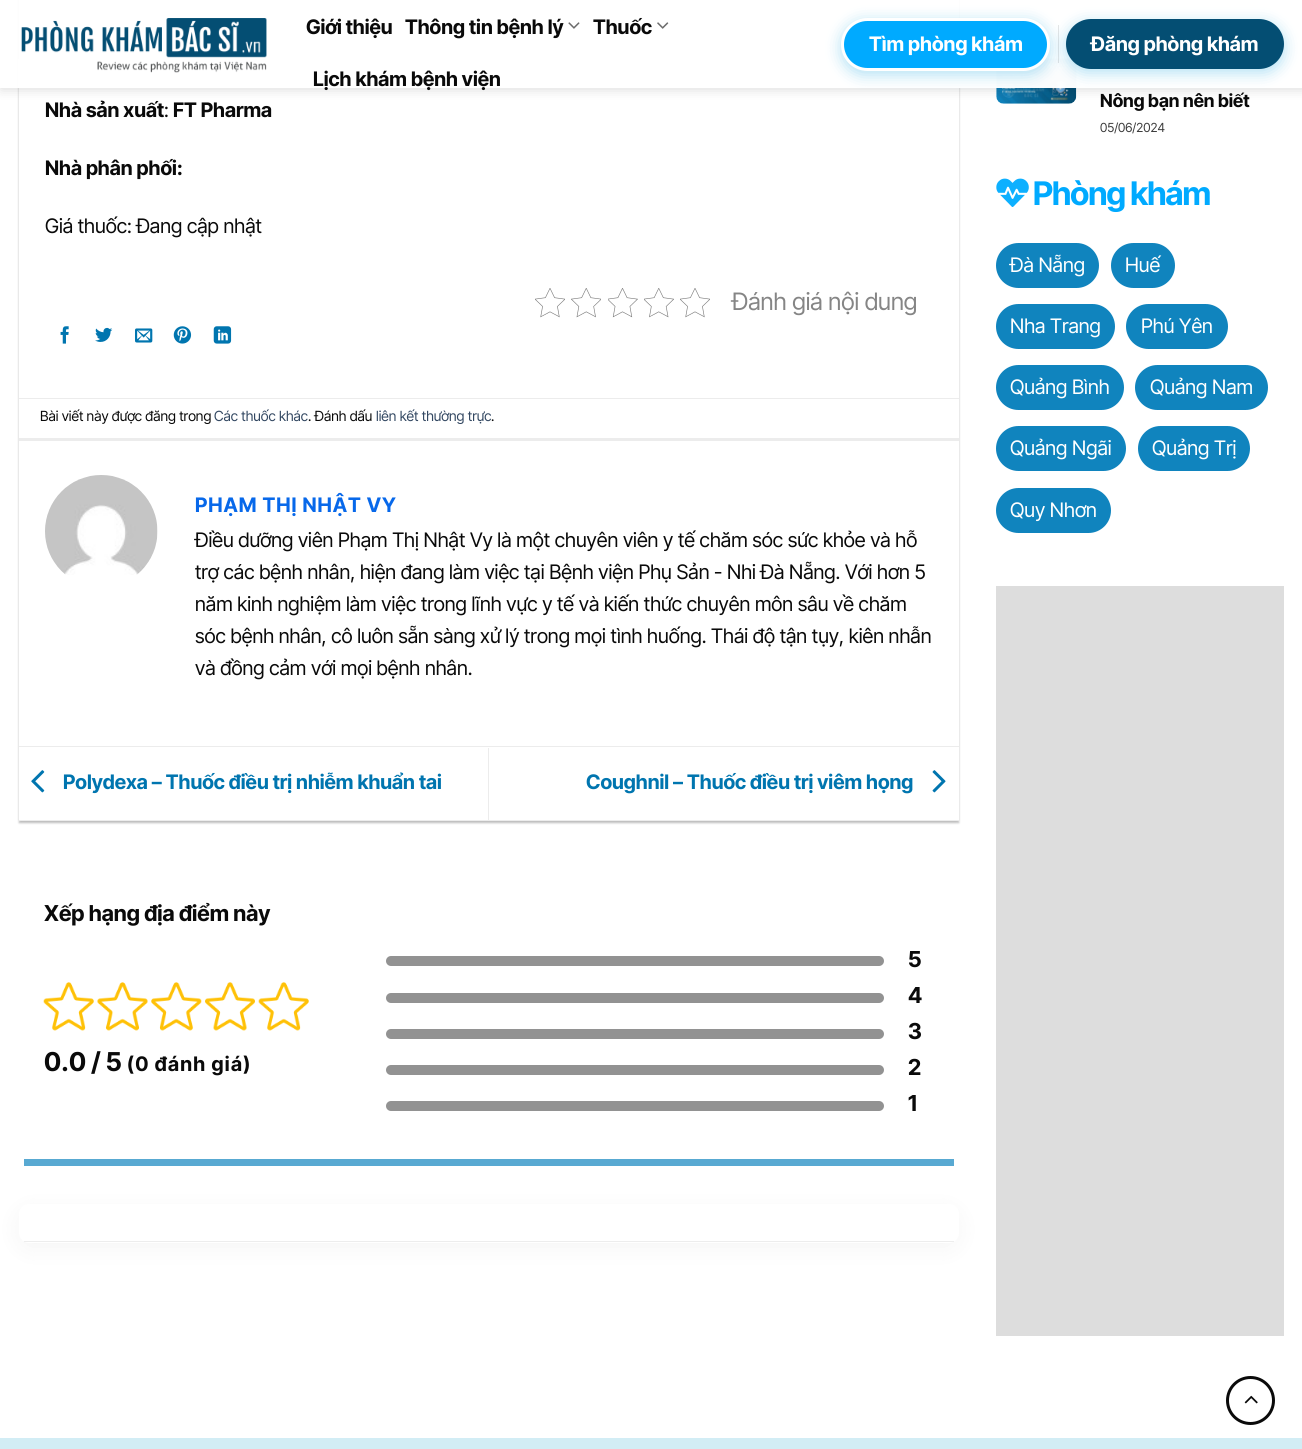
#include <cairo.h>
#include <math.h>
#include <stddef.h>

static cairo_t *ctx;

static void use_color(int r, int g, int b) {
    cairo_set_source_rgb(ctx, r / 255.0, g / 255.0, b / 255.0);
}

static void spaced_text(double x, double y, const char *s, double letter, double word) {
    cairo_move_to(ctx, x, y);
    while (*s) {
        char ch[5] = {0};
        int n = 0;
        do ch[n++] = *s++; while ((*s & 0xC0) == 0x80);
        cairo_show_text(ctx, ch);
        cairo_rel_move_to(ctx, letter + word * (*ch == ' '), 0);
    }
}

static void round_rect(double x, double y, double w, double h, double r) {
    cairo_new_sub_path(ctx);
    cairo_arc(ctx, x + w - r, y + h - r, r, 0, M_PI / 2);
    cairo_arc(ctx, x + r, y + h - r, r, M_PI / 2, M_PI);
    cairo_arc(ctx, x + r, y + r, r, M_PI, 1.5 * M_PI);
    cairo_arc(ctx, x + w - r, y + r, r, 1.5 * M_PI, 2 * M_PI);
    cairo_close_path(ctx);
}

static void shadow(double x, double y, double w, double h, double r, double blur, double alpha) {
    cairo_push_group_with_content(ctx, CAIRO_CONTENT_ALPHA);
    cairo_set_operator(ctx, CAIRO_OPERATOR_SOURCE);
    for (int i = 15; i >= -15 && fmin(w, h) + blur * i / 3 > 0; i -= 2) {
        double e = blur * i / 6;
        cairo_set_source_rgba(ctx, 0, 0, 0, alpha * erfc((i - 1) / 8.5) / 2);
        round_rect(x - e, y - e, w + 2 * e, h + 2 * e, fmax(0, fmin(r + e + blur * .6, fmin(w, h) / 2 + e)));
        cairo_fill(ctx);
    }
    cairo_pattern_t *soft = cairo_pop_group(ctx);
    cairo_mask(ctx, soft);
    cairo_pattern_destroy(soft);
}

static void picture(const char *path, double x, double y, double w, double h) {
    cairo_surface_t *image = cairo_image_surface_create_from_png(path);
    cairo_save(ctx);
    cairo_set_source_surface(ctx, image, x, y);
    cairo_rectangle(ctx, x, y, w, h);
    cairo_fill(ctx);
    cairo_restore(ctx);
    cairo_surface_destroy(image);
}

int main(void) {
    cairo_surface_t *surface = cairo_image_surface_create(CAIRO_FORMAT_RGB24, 1302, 1449);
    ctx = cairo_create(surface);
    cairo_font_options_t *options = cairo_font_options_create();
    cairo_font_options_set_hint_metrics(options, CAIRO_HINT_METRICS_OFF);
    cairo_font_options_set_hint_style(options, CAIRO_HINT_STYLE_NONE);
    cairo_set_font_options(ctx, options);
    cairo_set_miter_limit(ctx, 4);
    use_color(255, 255, 255);
    cairo_paint(ctx);
    use_color(0, 0, 0);
    shadow(19, -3, 940, 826, 0, 1, 0.24);
    shadow(21, -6, 935, 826, 0, 2, 0.12);
    use_color(255, 255, 255);
    cairo_rectangle(ctx, 19, 0, 940, 820);
    cairo_fill(ctx);
    picture("img21.png", 996, 58, 81, 46);
    cairo_save(ctx);
    cairo_set_fill_rule(ctx, CAIRO_FILL_RULE_EVEN_ODD);
    cairo_new_path(ctx);
    cairo_move_to(ctx, 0, 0);
    cairo_line_to(ctx, 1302, 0);
    cairo_line_to(ctx, 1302, 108);
    cairo_line_to(ctx, 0, 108);
    cairo_close_path(ctx);
    cairo_move_to(ctx, 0, 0);
    cairo_line_to(ctx, 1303, 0);
    cairo_line_to(ctx, 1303, 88);
    cairo_line_to(ctx, 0, 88);
    cairo_close_path(ctx);
    cairo_clip(ctx);
    use_color(0, 0, 0);
    shadow(1, 1, 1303, 88, 0, 6, 0.15);
    cairo_restore(ctx);
    cairo_set_source_rgba(ctx, 1, 1, 1, 0.9);
    cairo_rectangle(ctx, 0, 0, 1302, 88);
    cairo_fill(ctx);
    cairo_set_source_rgba(ctx, 1, 1, 1, 0.83);
    cairo_rectangle(ctx, 18, 59, 1058, 29);
    cairo_fill(ctx);
    picture("img1.png", 21, 18, 246, 55);
    cairo_select_font_face(ctx, "Inter Tight", CAIRO_FONT_SLANT_NORMAL, CAIRO_FONT_WEIGHT_BOLD);
    cairo_set_font_size(ctx, 20);
    use_color(10, 10, 10);
    cairo_move_to(ctx, 306, 34);
    cairo_show_text(ctx, "Giới thiệu");
    cairo_move_to(ctx, 405, 34);
    cairo_show_text(ctx, "Thông tin bệnh lý");
    picture("img2.png", 568, 22, 12, 7);
    cairo_move_to(ctx, 593, 34);
    cairo_show_text(ctx, "Thuốc");
    picture("img3.png", 657, 22, 12, 7);
    cairo_move_to(ctx, 313, 86);
    cairo_show_text(ctx, "Lịch khám bệnh viện");
    use_color(0, 156, 220);
    shadow(841, 21, 209, 54, 27, 7.5, 0.3);
    use_color(0, 170, 255);
    round_rect(842.5, 19.5, 206, 50, 25);
    cairo_fill_preserve(ctx);
    use_color(255, 255, 255);
    cairo_set_line_width(ctx, 3);
    cairo_stroke(ctx);
    cairo_move_to(ctx, 869, 51);
    cairo_show_text(ctx, "Tìm phòng khám");
    cairo_set_source_rgba(ctx, 0, 0, 0, 0.1);
    cairo_rectangle(ctx, 1058, 25, 1, 38);
    cairo_fill(ctx);
    use_color(0, 156, 220);
    shadow(1066, 23, 218, 50, 25, 7.5, 0.3);
    use_color(4, 78, 115);
    round_rect(1066, 19, 218, 50, 25);
    cairo_fill(ctx);
    use_color(255, 255, 255);
    cairo_move_to(ctx, 1091, 51);
    cairo_show_text(ctx, "Đăng phòng khám");
    use_color(10, 10, 10);
    cairo_move_to(ctx, 45, 117);
    cairo_show_text(ctx, "Nhà sản xuất");
    cairo_select_font_face(ctx, "Inter Tight", CAIRO_FONT_SLANT_NORMAL, CAIRO_FONT_WEIGHT_NORMAL);
    cairo_move_to(ctx, 164, 117);
    cairo_show_text(ctx, ":");
    cairo_select_font_face(ctx, "Inter Tight", CAIRO_FONT_SLANT_NORMAL, CAIRO_FONT_WEIGHT_BOLD);
    cairo_move_to(ctx, 173, 117);
    cairo_show_text(ctx, "FT Pharma");
    cairo_move_to(ctx, 45, 175);
    cairo_show_text(ctx, "Nhà phân phối:");
    cairo_select_font_face(ctx, "Inter Tight", CAIRO_FONT_SLANT_NORMAL, CAIRO_FONT_WEIGHT_NORMAL);
    cairo_move_to(ctx, 45, 233);
    cairo_show_text(ctx, "Giá thuốc: Đang cập nhật");
    picture("img4.png", 535, 288, 30, 30);
    picture("img5.png", 571, 288, 30, 30);
    picture("img6.png", 608, 288, 30, 30);
    picture("img7.png", 644, 288, 30, 30);
    picture("img4.png", 680, 288, 30, 30);
    cairo_set_font_size(ctx, 24);
    use_color(133, 133, 133);
    cairo_move_to(ctx, 732, 310);
    cairo_show_text(ctx, "Đánh giá nội dung");
    picture("img8.png", 60, 326, 9, 18);
    picture("img9.png", 95, 327, 18, 15);
    picture("img10.png", 135, 328, 18, 15);
    picture("img11.png", 173, 326, 19, 18);
    picture("img12.png", 213, 326, 19, 18);
    use_color(236, 236, 236);
    cairo_rectangle(ctx, 19, 398, 940, 1);
    cairo_fill(ctx);
    cairo_rectangle(ctx, 19, 438, 940, 3);
    cairo_fill(ctx);
    cairo_set_font_size(ctx, 14);
    use_color(10, 10, 10);
    cairo_move_to(ctx, 40, 421);
    cairo_show_text(ctx, "Bài viết này được đăng trong");
    use_color(51, 72, 98);
    cairo_move_to(ctx, 214, 421);
    cairo_show_text(ctx, "Các thuốc khác");
    use_color(10, 10, 10);
    cairo_move_to(ctx, 308, 421);
    cairo_show_text(ctx, ". Đánh dấu");
    use_color(51, 72, 98);
    cairo_move_to(ctx, 376, 421);
    cairo_show_text(ctx, "liên kết thường trực");
    use_color(10, 10, 10);
    cairo_move_to(ctx, 491, 421);
    cairo_show_text(ctx, ".");
    picture("img13.png", 45, 475, 113, 100);
    cairo_select_font_face(ctx, "Inter Tight", CAIRO_FONT_SLANT_NORMAL, CAIRO_FONT_WEIGHT_BOLD);
    cairo_set_font_size(ctx, 20);
    use_color(7, 104, 234);
    spaced_text(195, 512, "PHẠM THỊ NHẬT VY", 1, 0);
    cairo_select_font_face(ctx, "Inter Tight", CAIRO_FONT_SLANT_NORMAL, CAIRO_FONT_WEIGHT_NORMAL);
    use_color(10, 10, 10);
    cairo_move_to(ctx, 195, 547);
    cairo_show_text(ctx, "Điều dưỡng viên Phạm Thị Nhật Vy là một chuyên viên y tế chăm sóc sức khỏe và hỗ");
    cairo_move_to(ctx, 195, 579);
    cairo_show_text(ctx, "trợ các bệnh nhân, hiện đang làm việc tại Bệnh viện Phụ Sản - Nhi Đà Nẵng. Với hơn 5");
    cairo_move_to(ctx, 195, 611);
    cairo_show_text(ctx, "năm kinh nghiệm làm việc trong lĩnh vực y tế và kiến thức chuyên môn sâu về chăm");
    cairo_move_to(ctx, 195, 643);
    cairo_show_text(ctx, "sóc bệnh nhân, cô luôn sẵn sàng xử lý trong mọi tình huống. Thái độ tận tụy, kiên nhẫn");
    cairo_move_to(ctx, 195, 675);
    cairo_show_text(ctx, "và đồng cảm với mọi bệnh nhân.");
    use_color(236, 236, 236);
    cairo_rectangle(ctx, 19, 746, 940, 1);
    cairo_fill(ctx);
    cairo_rectangle(ctx, 19, 820, 940, 1);
    cairo_fill(ctx);
    picture("img14.png", 31, 770, 14, 23);
    cairo_select_font_face(ctx, "Inter Tight", CAIRO_FONT_SLANT_NORMAL, CAIRO_FONT_WEIGHT_BOLD);
    use_color(0, 117, 175);
    cairo_move_to(ctx, 63, 789);
    cairo_show_text(ctx, "Polydexa – Thuốc điều trị nhiễm khuẩn tai");
    use_color(236, 236, 236);
    cairo_rectangle(ctx, 488, 748, 1, 72);
    cairo_fill(ctx);
    use_color(0, 117, 175);
    cairo_move_to(ctx, 586, 789);
    cairo_show_text(ctx, "Coughnil – Thuốc điều trị viêm họng");
    picture("img15.png", 932, 770, 14, 23);
    use_color(88, 169, 210);
    cairo_rectangle(ctx, 24, 1159, 930, 7);
    cairo_fill(ctx);
    cairo_set_font_size(ctx, 21.9);
    use_color(10, 10, 10);
    cairo_move_to(ctx, 44, 921);
    cairo_show_text(ctx, "Xếp hạng địa điểm này");
    picture("img16.png", 43, 982, 51, 49);
    picture("img17.png", 97, 982, 51, 49);
    picture("img18.png", 151, 982, 51, 49);
    picture("img19.png", 205, 982, 50, 49);
    picture("img20.png", 258, 982, 51, 49);
    cairo_set_font_size(ctx, 26);
    cairo_move_to(ctx, 44, 1071);
    cairo_show_text(ctx, "0.0 / 5");
    cairo_set_font_size(ctx, 20);
    spaced_text(127, 1071, "(0 đánh giá)", 1.25, 0);
    use_color(146, 146, 146);
    round_rect(386, 956, 498, 10, 5);
    cairo_fill(ctx);
    cairo_set_font_size(ctx, 22);
    use_color(10, 10, 10);
    cairo_move_to(ctx, 908, 967);
    cairo_show_text(ctx, "5");
    use_color(146, 146, 146);
    round_rect(386, 993, 498, 10, 5);
    cairo_fill(ctx);
    use_color(10, 10, 10);
    cairo_move_to(ctx, 908, 1003);
    cairo_show_text(ctx, "4");
    use_color(146, 146, 146);
    round_rect(386, 1029, 498, 10, 5);
    cairo_fill(ctx);
    use_color(10, 10, 10);
    cairo_move_to(ctx, 908, 1039);
    cairo_show_text(ctx, "3");
    use_color(146, 146, 146);
    round_rect(386, 1065, 498, 10, 5);
    cairo_fill(ctx);
    use_color(10, 10, 10);
    cairo_move_to(ctx, 908, 1075);
    cairo_show_text(ctx, "2");
    use_color(146, 146, 146);
    round_rect(386, 1101, 498, 10, 5);
    cairo_fill(ctx);
    use_color(10, 10, 10);
    cairo_move_to(ctx, 908, 1111);
    cairo_show_text(ctx, "1");
    use_color(0, 0, 0);
    shadow(21, 1213, 935, 33, 8, 12.5, 0.05);
    use_color(255, 255, 255);
    round_rect(19, 1204, 940, 39, 10);
    cairo_fill(ctx);
    use_color(237, 237, 237);
    cairo_rectangle(ctx, 24, 1241, 930, 1);
    cairo_fill(ctx);
    cairo_set_font_size(ctx, 18);
    use_color(10, 10, 10);
    cairo_move_to(ctx, 1100, 107);
    cairo_show_text(ctx, "Nông bạn nên biết");
    cairo_select_font_face(ctx, "Inter Tight", CAIRO_FONT_SLANT_NORMAL, CAIRO_FONT_WEIGHT_NORMAL);
    cairo_set_font_size(ctx, 12.5);
    use_color(59, 59, 59);
    cairo_move_to(ctx, 1100, 132);
    cairo_show_text(ctx, "05/06/2024");
    picture("img22.png", 996, 178, 33, 29);
    cairo_select_font_face(ctx, "Inter Tight", CAIRO_FONT_SLANT_NORMAL, CAIRO_FONT_WEIGHT_BOLD);
    cairo_set_font_size(ctx, 32.5);
    use_color(0, 170, 255);
    spaced_text(1033, 205, "Phòng khám", -1, 0);
    use_color(16, 132, 190);
    round_rect(996, 243, 103, 45, 22.5);
    cairo_fill(ctx);
    cairo_select_font_face(ctx, "Inter Tight", CAIRO_FONT_SLANT_NORMAL, CAIRO_FONT_WEIGHT_NORMAL);
    cairo_set_font_size(ctx, 20);
    use_color(255, 255, 255);
    cairo_move_to(ctx, 1010, 272);
    cairo_show_text(ctx, "Đà Nẵng");
    use_color(16, 132, 190);
    round_rect(1111, 243, 64, 45, 22.5);
    cairo_fill(ctx);
    use_color(255, 255, 255);
    cairo_move_to(ctx, 1125, 272);
    cairo_show_text(ctx, "Huế");
    use_color(16, 132, 190);
    round_rect(996, 304, 119, 45, 22.5);
    cairo_fill(ctx);
    use_color(255, 255, 255);
    cairo_move_to(ctx, 1010, 333);
    cairo_show_text(ctx, "Nha Trang");
    use_color(16, 132, 190);
    round_rect(1126, 304, 102, 45, 22.5);
    cairo_fill(ctx);
    use_color(255, 255, 255);
    cairo_move_to(ctx, 1141, 333);
    cairo_show_text(ctx, "Phú Yên");
    use_color(16, 132, 190);
    round_rect(996, 365, 128, 45, 22.5);
    cairo_fill(ctx);
    use_color(255, 255, 255);
    cairo_move_to(ctx, 1010, 394);
    cairo_show_text(ctx, "Quảng Bình");
    use_color(16, 132, 190);
    round_rect(1135, 365, 133, 45, 22.5);
    cairo_fill(ctx);
    use_color(255, 255, 255);
    cairo_move_to(ctx, 1150, 394);
    cairo_show_text(ctx, "Quảng Nam");
    use_color(16, 132, 190);
    round_rect(996, 426, 130, 45, 22.5);
    cairo_fill(ctx);
    use_color(255, 255, 255);
    cairo_move_to(ctx, 1010, 455);
    cairo_show_text(ctx, "Quảng Ngãi");
    use_color(16, 132, 190);
    round_rect(1138, 426, 112, 45, 22.5);
    cairo_fill(ctx);
    use_color(255, 255, 255);
    cairo_move_to(ctx, 1152, 455);
    cairo_show_text(ctx, "Quảng Trị");
    use_color(16, 132, 190);
    round_rect(996, 488, 115, 45, 22.5);
    cairo_fill(ctx);
    use_color(255, 255, 255);
    cairo_move_to(ctx, 1010, 517);
    cairo_show_text(ctx, "Quy Nhơn");
    use_color(221, 221, 221);
    cairo_rectangle(ctx, 996, 586, 288, 750);
    cairo_fill(ctx);
    cairo_arc(ctx, 1250.5, 1400.5, 23, 0, 2 * M_PI);
    use_color(10, 10, 10);
    cairo_stroke(ctx);
    picture("img23.png", 1244, 1395, 14, 9);
    use_color(210, 237, 245);
    cairo_rectangle(ctx, 0, 1438, 1302, 11);
    cairo_fill(ctx);
    cairo_surface_write_to_png(surface, "result.png");
    cairo_font_options_destroy(options);
    cairo_destroy(ctx);
    cairo_surface_destroy(surface);
    return 0;
}
